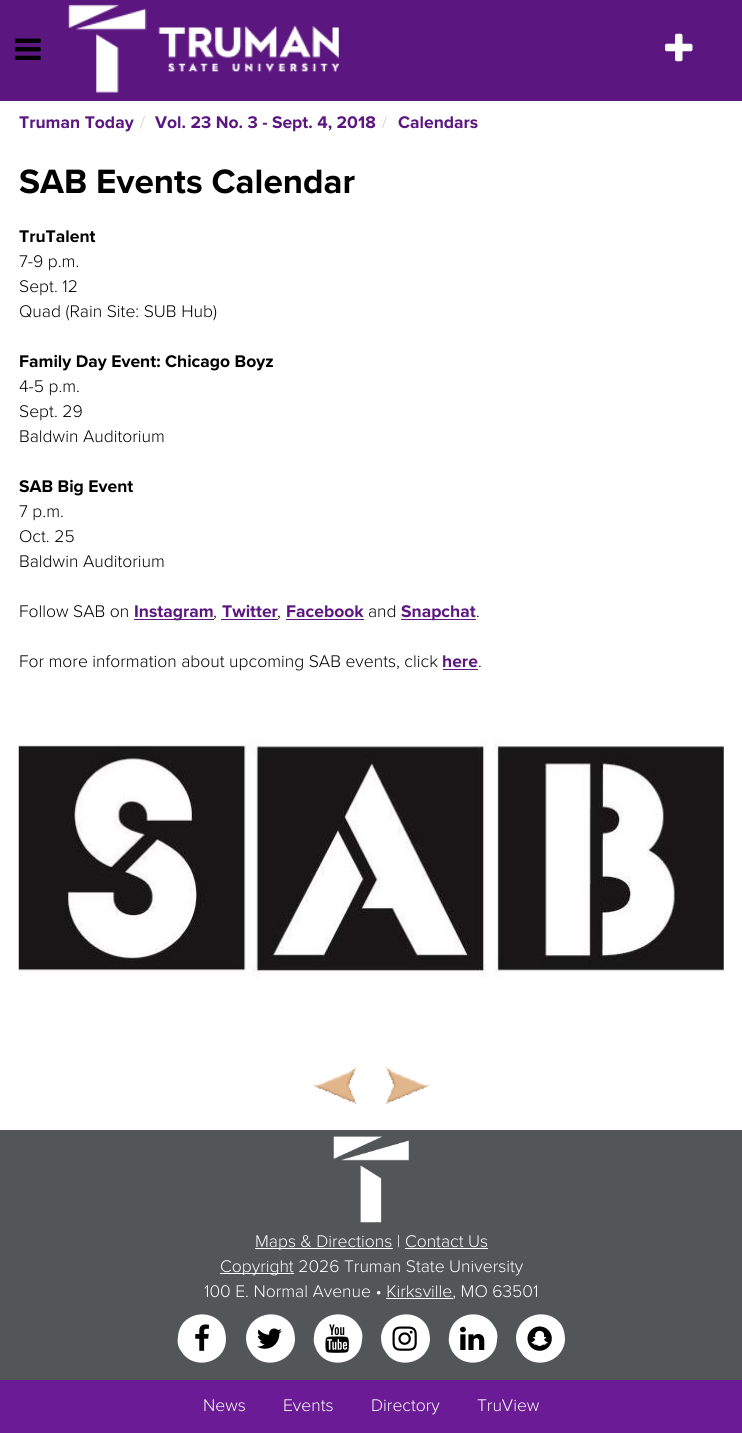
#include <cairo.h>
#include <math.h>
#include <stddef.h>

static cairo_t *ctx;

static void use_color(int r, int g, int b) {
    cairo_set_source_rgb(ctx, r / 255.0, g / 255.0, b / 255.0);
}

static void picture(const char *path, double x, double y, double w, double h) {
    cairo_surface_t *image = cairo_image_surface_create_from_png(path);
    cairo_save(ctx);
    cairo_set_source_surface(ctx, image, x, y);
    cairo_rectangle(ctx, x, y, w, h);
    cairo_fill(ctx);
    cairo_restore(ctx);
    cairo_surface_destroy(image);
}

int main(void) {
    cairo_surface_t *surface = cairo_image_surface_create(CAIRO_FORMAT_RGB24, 742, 1433);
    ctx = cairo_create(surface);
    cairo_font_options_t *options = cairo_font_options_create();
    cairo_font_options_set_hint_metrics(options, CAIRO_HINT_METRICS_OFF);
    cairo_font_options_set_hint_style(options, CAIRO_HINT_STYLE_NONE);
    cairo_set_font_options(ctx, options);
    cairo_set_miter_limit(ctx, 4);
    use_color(255, 255, 255);
    cairo_paint(ctx);
    use_color(91, 23, 127);
    cairo_rectangle(ctx, 0, 0, 742, 101);
    cairo_fill(ctx);
    picture("img1.png", 15, 38, 26, 22);
    picture("img2.png", 68, 4, 271, 89);
    picture("img3.png", 665, 33, 28, 29);
    cairo_select_font_face(ctx, "Proxima Nova", CAIRO_FONT_SLANT_NORMAL, CAIRO_FONT_WEIGHT_BOLD);
    cairo_set_font_size(ctx, 17.5);
    cairo_move_to(ctx, 19, 128);
    cairo_show_text(ctx, "Truman Today");
    cairo_select_font_face(ctx, "Proxima Nova Light", CAIRO_FONT_SLANT_NORMAL, CAIRO_FONT_WEIGHT_NORMAL);
    use_color(204, 204, 204);
    cairo_move_to(ctx, 140, 128);
    cairo_show_text(ctx, "/");
    cairo_select_font_face(ctx, "Proxima Nova", CAIRO_FONT_SLANT_NORMAL, CAIRO_FONT_WEIGHT_BOLD);
    use_color(91, 23, 127);
    cairo_move_to(ctx, 155, 128);
    cairo_show_text(ctx, "Vol. 23 No. 3 - Sept. 4, 2018");
    cairo_select_font_face(ctx, "Proxima Nova Light", CAIRO_FONT_SLANT_NORMAL, CAIRO_FONT_WEIGHT_NORMAL);
    use_color(204, 204, 204);
    cairo_move_to(ctx, 382, 128);
    cairo_show_text(ctx, "/");
    cairo_select_font_face(ctx, "Proxima Nova", CAIRO_FONT_SLANT_NORMAL, CAIRO_FONT_WEIGHT_BOLD);
    use_color(91, 23, 127);
    cairo_move_to(ctx, 398, 128);
    cairo_show_text(ctx, "Calendars");
    cairo_set_font_size(ctx, 35);
    use_color(0, 0, 0);
    cairo_move_to(ctx, 19, 193);
    cairo_show_text(ctx, "SAB Events Calendar");
    cairo_set_font_size(ctx, 17.5);
    cairo_move_to(ctx, 19, 242);
    cairo_show_text(ctx, "TruTalent");
    cairo_select_font_face(ctx, "Proxima Nova Light", CAIRO_FONT_SLANT_NORMAL, CAIRO_FONT_WEIGHT_NORMAL);
    cairo_move_to(ctx, 19, 267);
    cairo_show_text(ctx, "7-9 p.m.");
    cairo_move_to(ctx, 19, 292);
    cairo_show_text(ctx, "Sept. 12");
    cairo_move_to(ctx, 19, 317);
    cairo_show_text(ctx, "Quad (Rain Site: SUB Hub)");
    cairo_select_font_face(ctx, "Proxima Nova", CAIRO_FONT_SLANT_NORMAL, CAIRO_FONT_WEIGHT_BOLD);
    cairo_move_to(ctx, 19, 367);
    cairo_show_text(ctx, "Family Day Event: Chicago Boyz");
    cairo_select_font_face(ctx, "Proxima Nova Light", CAIRO_FONT_SLANT_NORMAL, CAIRO_FONT_WEIGHT_NORMAL);
    cairo_move_to(ctx, 19, 392);
    cairo_show_text(ctx, "4-5 p.m.");
    cairo_move_to(ctx, 19, 417);
    cairo_show_text(ctx, "Sept. 29");
    cairo_move_to(ctx, 19, 442);
    cairo_show_text(ctx, "Baldwin Auditorium");
    cairo_select_font_face(ctx, "Proxima Nova", CAIRO_FONT_SLANT_NORMAL, CAIRO_FONT_WEIGHT_BOLD);
    cairo_move_to(ctx, 19, 492);
    cairo_show_text(ctx, "SAB Big Event");
    cairo_select_font_face(ctx, "Proxima Nova Light", CAIRO_FONT_SLANT_NORMAL, CAIRO_FONT_WEIGHT_NORMAL);
    cairo_move_to(ctx, 19, 517);
    cairo_show_text(ctx, "7 p.m.");
    cairo_move_to(ctx, 19, 542);
    cairo_show_text(ctx, "Oct. 25");
    cairo_move_to(ctx, 19, 567);
    cairo_show_text(ctx, "Baldwin Auditorium");
    cairo_move_to(ctx, 19, 617);
    cairo_show_text(ctx, "Follow SAB on");
    use_color(91, 23, 127);
    cairo_rectangle(ctx, 134, 619, 80, 1);
    cairo_fill(ctx);
    cairo_select_font_face(ctx, "Proxima Nova", CAIRO_FONT_SLANT_NORMAL, CAIRO_FONT_WEIGHT_BOLD);
    cairo_move_to(ctx, 134, 617);
    cairo_show_text(ctx, "Instagram");
    cairo_select_font_face(ctx, "Proxima Nova Light", CAIRO_FONT_SLANT_NORMAL, CAIRO_FONT_WEIGHT_NORMAL);
    use_color(0, 0, 0);
    cairo_move_to(ctx, 213, 617);
    cairo_show_text(ctx, ",");
    cairo_select_font_face(ctx, "Proxima Nova", CAIRO_FONT_SLANT_NORMAL, CAIRO_FONT_WEIGHT_BOLD);
    use_color(91, 23, 127);
    cairo_move_to(ctx, 222, 617);
    cairo_show_text(ctx, "Twitter");
    cairo_rectangle(ctx, 221, 619, 57, 1);
    cairo_fill(ctx);
    cairo_select_font_face(ctx, "Proxima Nova Light", CAIRO_FONT_SLANT_NORMAL, CAIRO_FONT_WEIGHT_NORMAL);
    use_color(0, 0, 0);
    cairo_move_to(ctx, 277, 617);
    cairo_show_text(ctx, ",");
    cairo_select_font_face(ctx, "Proxima Nova", CAIRO_FONT_SLANT_NORMAL, CAIRO_FONT_WEIGHT_BOLD);
    use_color(91, 23, 127);
    cairo_move_to(ctx, 286, 617);
    cairo_show_text(ctx, "Facebook");
    cairo_rectangle(ctx, 286, 619, 78, 1);
    cairo_fill(ctx);
    cairo_select_font_face(ctx, "Proxima Nova Light", CAIRO_FONT_SLANT_NORMAL, CAIRO_FONT_WEIGHT_NORMAL);
    use_color(0, 0, 0);
    cairo_move_to(ctx, 368, 617);
    cairo_show_text(ctx, "and");
    use_color(91, 23, 127);
    cairo_rectangle(ctx, 401, 619, 75, 1);
    cairo_fill(ctx);
    cairo_select_font_face(ctx, "Proxima Nova", CAIRO_FONT_SLANT_NORMAL, CAIRO_FONT_WEIGHT_BOLD);
    cairo_move_to(ctx, 401, 617);
    cairo_show_text(ctx, "Snapchat");
    cairo_select_font_face(ctx, "Proxima Nova Light", CAIRO_FONT_SLANT_NORMAL, CAIRO_FONT_WEIGHT_NORMAL);
    use_color(0, 0, 0);
    cairo_move_to(ctx, 476, 617);
    cairo_show_text(ctx, ".");
    cairo_move_to(ctx, 19, 667);
    cairo_show_text(ctx, "For more information about upcoming SAB events, click");
    cairo_select_font_face(ctx, "Proxima Nova", CAIRO_FONT_SLANT_NORMAL, CAIRO_FONT_WEIGHT_BOLD);
    use_color(91, 23, 127);
    cairo_move_to(ctx, 442, 667);
    cairo_show_text(ctx, "here");
    cairo_rectangle(ctx, 443, 669, 35, 1);
    cairo_fill(ctx);
    cairo_select_font_face(ctx, "Proxima Nova Light", CAIRO_FONT_SLANT_NORMAL, CAIRO_FONT_WEIGHT_NORMAL);
    use_color(0, 0, 0);
    cairo_move_to(ctx, 478, 667);
    cairo_show_text(ctx, ".");
    picture("img4.png", 18, 739, 706, 241);
    picture("img5.png", 313, 1067, 44, 37);
    picture("img6.png", 386, 1067, 43, 37);
    use_color(82, 86, 86);
    cairo_rectangle(ctx, 0, 1130, 742, 250);
    cairo_fill(ctx);
    picture("img7.png", 333, 1136, 76, 87);
    use_color(255, 255, 255);
    cairo_rectangle(ctx, 255, 1248, 138, 1);
    cairo_fill(ctx);
    cairo_move_to(ctx, 255, 1247);
    cairo_show_text(ctx, "Maps & Directions | Contact Us");
    cairo_rectangle(ctx, 405, 1248, 83, 1);
    cairo_fill(ctx);
    cairo_rectangle(ctx, 220, 1273, 74, 1);
    cairo_fill(ctx);
    cairo_move_to(ctx, 220, 1272);
    cairo_show_text(ctx, "Copyright 2026 Truman State University");
    cairo_move_to(ctx, 204, 1297);
    cairo_show_text(ctx, "100 E. Normal Avenue • Kirksville, MO 63501");
    cairo_rectangle(ctx, 386, 1298, 67, 1);
    cairo_fill(ctx);
    cairo_new_path(ctx);
    cairo_move_to(ctx, 223, 1326);
    cairo_curve_to(ctx, 225, 1330, 226, 1335, 226, 1340);
    cairo_curve_to(ctx, 225, 1364, 193, 1371, 181, 1351);
    cairo_curve_to(ctx, 178, 1347, 177, 1342, 178, 1337);
    cairo_curve_to(ctx, 179, 1313, 211, 1306, 223, 1326);
    cairo_close_path(ctx);
    cairo_fill(ctx);
    picture("img8.png", 195, 1324, 14, 27);
    cairo_new_path(ctx);
    cairo_move_to(ctx, 292, 1326);
    cairo_curve_to(ctx, 294, 1330, 295, 1335, 295, 1340);
    cairo_curve_to(ctx, 293, 1364, 261, 1371, 250, 1351);
    cairo_curve_to(ctx, 247, 1347, 246, 1342, 246, 1337);
    cairo_curve_to(ctx, 248, 1313, 280, 1306, 292, 1326);
    cairo_close_path(ctx);
    cairo_fill(ctx);
    picture("img9.png", 257, 1328, 25, 21);
    cairo_new_path(ctx);
    cairo_move_to(ctx, 359, 1326);
    cairo_curve_to(ctx, 362, 1330, 363, 1335, 362, 1340);
    cairo_curve_to(ctx, 361, 1364, 329, 1371, 317, 1351);
    cairo_curve_to(ctx, 315, 1347, 313, 1342, 314, 1337);
    cairo_curve_to(ctx, 315, 1313, 347, 1306, 359, 1326);
    cairo_close_path(ctx);
    cairo_fill(ctx);
    picture("img10.png", 325, 1324, 24, 29);
    cairo_new_path(ctx);
    cairo_move_to(ctx, 427, 1326);
    cairo_curve_to(ctx, 429, 1330, 430, 1335, 430, 1340);
    cairo_curve_to(ctx, 428, 1364, 396, 1371, 385, 1351);
    cairo_curve_to(ctx, 382, 1347, 381, 1342, 381, 1337);
    cairo_curve_to(ctx, 383, 1313, 415, 1306, 427, 1326);
    cairo_close_path(ctx);
    cairo_fill(ctx);
    picture("img11.png", 392, 1326, 25, 25);
    cairo_new_path(ctx);
    cairo_move_to(ctx, 494, 1326);
    cairo_curve_to(ctx, 497, 1330, 498, 1335, 497, 1340);
    cairo_curve_to(ctx, 496, 1364, 464, 1371, 452, 1351);
    cairo_curve_to(ctx, 450, 1347, 448, 1342, 449, 1337);
    cairo_curve_to(ctx, 450, 1313, 482, 1306, 494, 1326);
    cairo_close_path(ctx);
    cairo_fill(ctx);
    picture("img12.png", 460, 1326, 25, 24);
    cairo_new_path(ctx);
    cairo_move_to(ctx, 562, 1326);
    cairo_curve_to(ctx, 564, 1330, 565, 1335, 565, 1340);
    cairo_curve_to(ctx, 563, 1364, 531, 1371, 520, 1351);
    cairo_curve_to(ctx, 517, 1347, 516, 1342, 516, 1337);
    cairo_curve_to(ctx, 518, 1313, 550, 1306, 562, 1326);
    cairo_close_path(ctx);
    cairo_fill(ctx);
    picture("img13.png", 527, 1326, 25, 25);
    use_color(106, 27, 149);
    cairo_rectangle(ctx, 0, 1380, 742, 53);
    cairo_fill(ctx);
    use_color(255, 255, 255);
    cairo_move_to(ctx, 203, 1411);
    cairo_show_text(ctx, "News");
    cairo_move_to(ctx, 283, 1411);
    cairo_show_text(ctx, "Events");
    cairo_move_to(ctx, 371, 1411);
    cairo_show_text(ctx, "Directory");
    cairo_move_to(ctx, 477, 1411);
    cairo_show_text(ctx, "TruView");
    cairo_surface_write_to_png(surface, "result.png");
    cairo_font_options_destroy(options);
    cairo_destroy(ctx);
    cairo_surface_destroy(surface);
    return 0;
}
